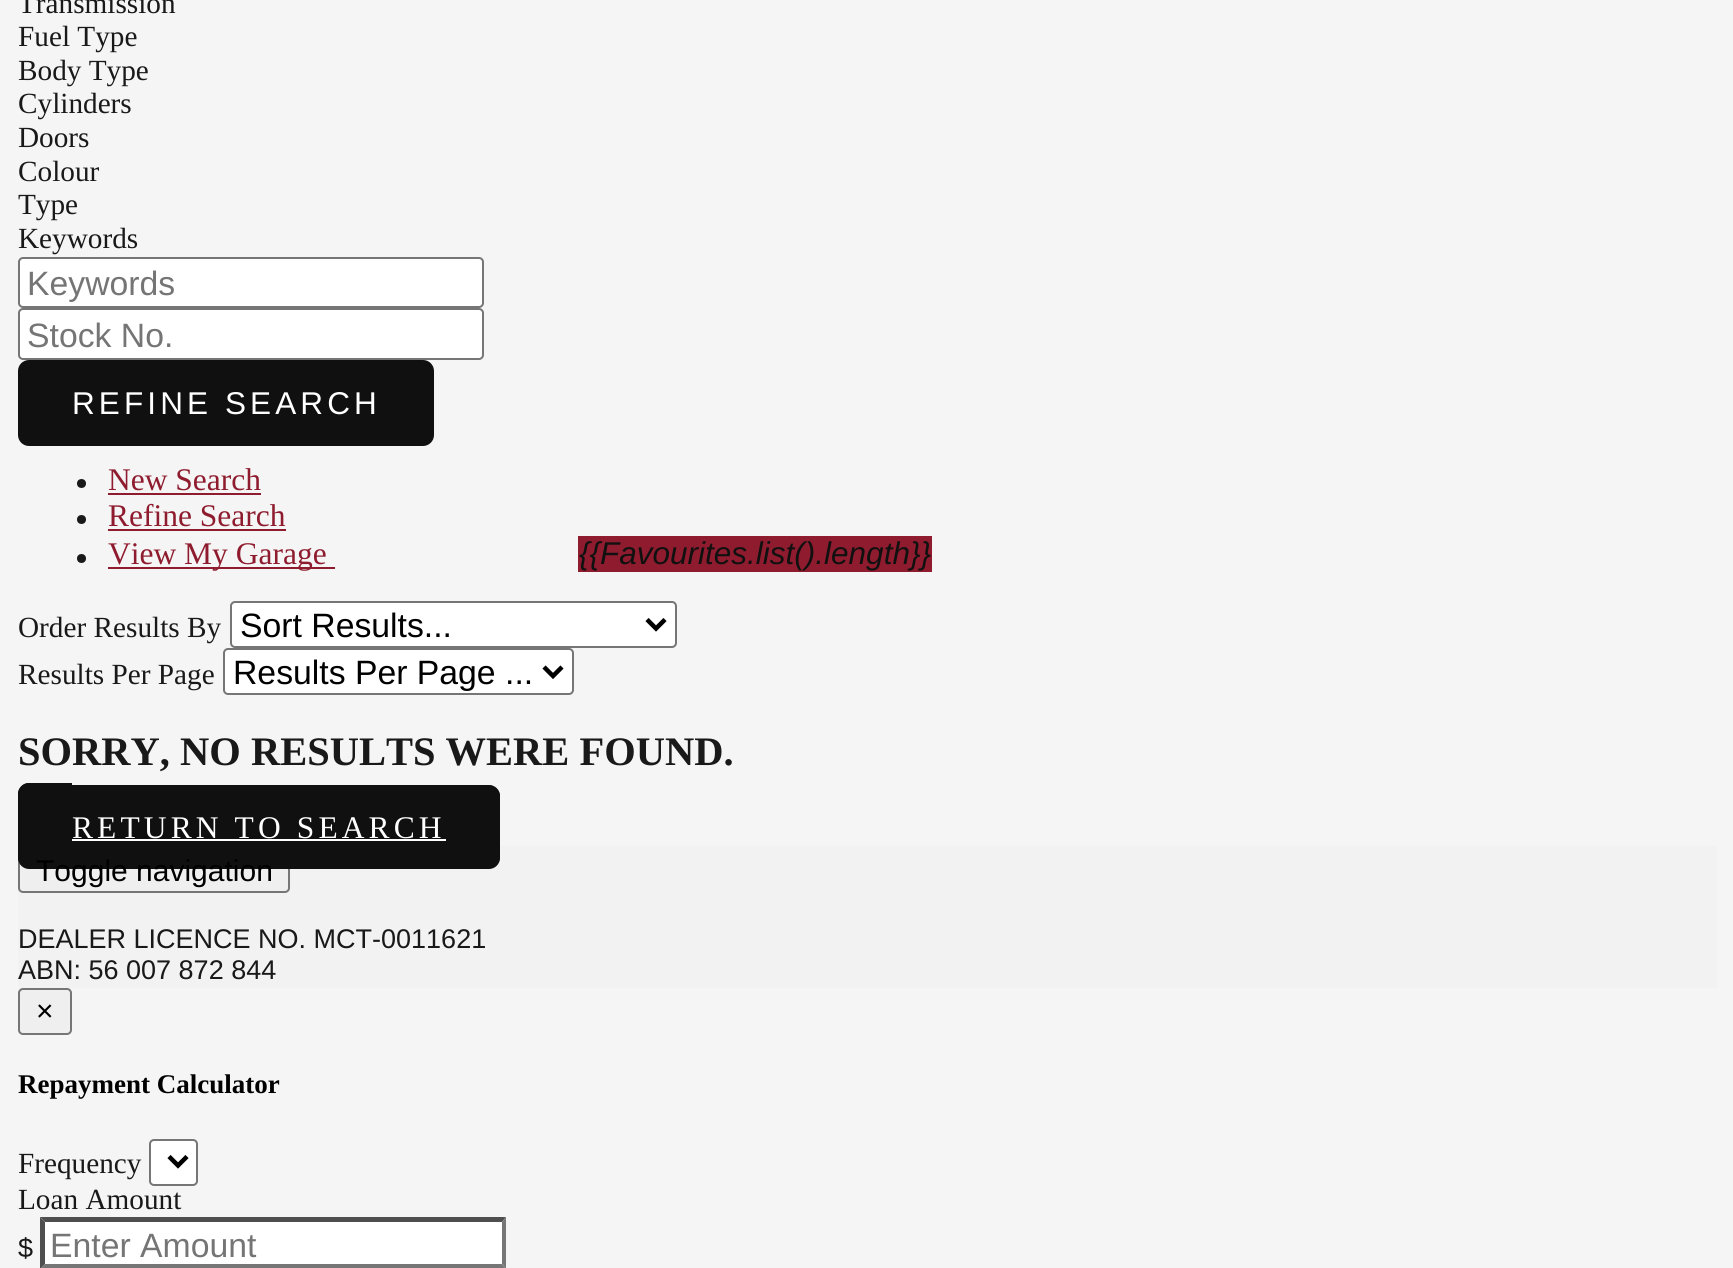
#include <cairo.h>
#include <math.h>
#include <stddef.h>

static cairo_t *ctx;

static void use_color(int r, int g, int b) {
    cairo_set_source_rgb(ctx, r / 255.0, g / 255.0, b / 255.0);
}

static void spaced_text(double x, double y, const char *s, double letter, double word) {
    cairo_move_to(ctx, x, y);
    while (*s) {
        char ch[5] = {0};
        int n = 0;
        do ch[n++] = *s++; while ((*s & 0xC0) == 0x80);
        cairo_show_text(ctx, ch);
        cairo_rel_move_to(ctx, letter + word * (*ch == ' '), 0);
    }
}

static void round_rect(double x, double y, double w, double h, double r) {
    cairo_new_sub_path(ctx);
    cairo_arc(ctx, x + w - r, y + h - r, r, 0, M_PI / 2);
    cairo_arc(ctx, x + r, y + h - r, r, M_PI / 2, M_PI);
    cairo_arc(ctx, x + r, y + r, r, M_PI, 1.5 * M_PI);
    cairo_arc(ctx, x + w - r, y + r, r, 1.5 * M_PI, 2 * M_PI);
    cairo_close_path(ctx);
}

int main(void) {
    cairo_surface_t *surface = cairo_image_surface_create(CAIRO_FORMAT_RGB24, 1733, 1268);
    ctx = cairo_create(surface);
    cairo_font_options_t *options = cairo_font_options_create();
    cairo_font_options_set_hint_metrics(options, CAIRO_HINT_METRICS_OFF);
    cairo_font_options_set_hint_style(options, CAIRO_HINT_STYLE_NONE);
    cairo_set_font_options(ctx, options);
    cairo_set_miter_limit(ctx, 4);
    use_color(245, 245, 245);
    cairo_paint(ctx);
    cairo_select_font_face(ctx, "Liberation Serif", CAIRO_FONT_SLANT_NORMAL, CAIRO_FONT_WEIGHT_NORMAL);
    cairo_set_font_size(ctx, 29.25);
    use_color(25, 25, 25);
    cairo_move_to(ctx, 18, 13);
    cairo_show_text(ctx, "Transmission");
    cairo_move_to(ctx, 18, 46);
    cairo_show_text(ctx, "Fuel Type");
    cairo_move_to(ctx, 18, 80);
    cairo_show_text(ctx, "Body Type");
    cairo_move_to(ctx, 18, 113);
    cairo_show_text(ctx, "Cylinders");
    cairo_move_to(ctx, 18, 147);
    cairo_show_text(ctx, "Doors");
    cairo_move_to(ctx, 18, 181);
    cairo_show_text(ctx, "Colour");
    cairo_move_to(ctx, 18, 214);
    cairo_show_text(ctx, "Type");
    cairo_move_to(ctx, 18, 248);
    cairo_show_text(ctx, "Keywords");
    use_color(255, 255, 255);
    round_rect(19, 258, 464, 49, 4);
    cairo_fill_preserve(ctx);
    use_color(118, 118, 118);
    cairo_stroke(ctx);
    cairo_select_font_face(ctx, "Liberation Sans", CAIRO_FONT_SLANT_NORMAL, CAIRO_FONT_WEIGHT_NORMAL);
    cairo_set_font_size(ctx, 33.75);
    use_color(117, 117, 117);
    cairo_move_to(ctx, 27, 295);
    cairo_show_text(ctx, "Keywords");
    use_color(255, 255, 255);
    round_rect(19, 309, 464, 50, 4);
    cairo_fill_preserve(ctx);
    use_color(118, 118, 118);
    cairo_stroke(ctx);
    use_color(117, 117, 117);
    cairo_move_to(ctx, 27, 347);
    cairo_show_text(ctx, "Stock No.");
    use_color(16, 16, 16);
    round_rect(19, 361, 414, 84, 10);
    cairo_fill_preserve(ctx);
    cairo_stroke(ctx);
    cairo_set_font_size(ctx, 31.5);
    use_color(255, 255, 255);
    spaced_text(72, 414, "REFINE SEARCH", 4.1, 0);
    use_color(25, 25, 25);
    cairo_new_path(ctx);
    cairo_arc(ctx, 81.5, 483.5, 4.5, 0, 2 * M_PI);
    cairo_fill(ctx);
    cairo_select_font_face(ctx, "Liberation Serif", CAIRO_FONT_SLANT_NORMAL, CAIRO_FONT_WEIGHT_NORMAL);
    use_color(142, 28, 46);
    cairo_move_to(ctx, 108, 490);
    cairo_show_text(ctx, "New Search");
    cairo_rectangle(ctx, 108, 493, 153, 2);
    cairo_fill(ctx);
    use_color(25, 25, 25);
    cairo_arc(ctx, 81.5, 519.5, 4.5, 0, 2 * M_PI);
    cairo_fill(ctx);
    use_color(142, 28, 46);
    cairo_move_to(ctx, 108, 526);
    cairo_show_text(ctx, "Refine Search");
    cairo_rectangle(ctx, 108, 529, 178, 2);
    cairo_fill(ctx);
    use_color(25, 25, 25);
    cairo_arc(ctx, 81.5, 558.5, 4.5, 0, 2 * M_PI);
    cairo_fill(ctx);
    use_color(142, 28, 46);
    cairo_rectangle(ctx, 108, 567, 227, 2);
    cairo_fill(ctx);
    cairo_move_to(ctx, 108, 564);
    cairo_show_text(ctx, "View My Garage");
    cairo_rectangle(ctx, 578, 536, 354, 36);
    cairo_fill(ctx);
    cairo_select_font_face(ctx, "Liberation Sans", CAIRO_FONT_SLANT_ITALIC, CAIRO_FONT_WEIGHT_NORMAL);
    use_color(16, 16, 16);
    cairo_move_to(ctx, 579, 564);
    cairo_show_text(ctx, "{{Favourites.list().length}}");
    cairo_select_font_face(ctx, "Liberation Serif", CAIRO_FONT_SLANT_NORMAL, CAIRO_FONT_WEIGHT_NORMAL);
    cairo_set_font_size(ctx, 29.25);
    use_color(25, 25, 25);
    cairo_move_to(ctx, 18, 637);
    cairo_show_text(ctx, "Order Results By");
    use_color(255, 255, 255);
    round_rect(231, 602, 445, 45, 4);
    cairo_fill_preserve(ctx);
    use_color(118, 118, 118);
    cairo_stroke(ctx);
    cairo_new_path(ctx);
    cairo_move_to(ctx, 647, 619.5);
    cairo_line_to(ctx, 656, 628.5);
    cairo_line_to(ctx, 665, 619.5);
    use_color(0, 0, 0);
    cairo_set_line_width(ctx, 4.5);
    cairo_stroke(ctx);
    cairo_select_font_face(ctx, "Liberation Sans", CAIRO_FONT_SLANT_NORMAL, CAIRO_FONT_WEIGHT_NORMAL);
    cairo_set_font_size(ctx, 33.75);
    cairo_move_to(ctx, 240, 637);
    cairo_show_text(ctx, "Sort Results...");
    cairo_select_font_face(ctx, "Liberation Serif", CAIRO_FONT_SLANT_NORMAL, CAIRO_FONT_WEIGHT_NORMAL);
    cairo_set_font_size(ctx, 29.25);
    use_color(25, 25, 25);
    cairo_move_to(ctx, 18, 684);
    cairo_show_text(ctx, "Results Per Page");
    use_color(255, 255, 255);
    round_rect(224, 649, 349, 45, 4);
    cairo_fill_preserve(ctx);
    use_color(118, 118, 118);
    cairo_set_line_width(ctx, 2);
    cairo_stroke(ctx);
    cairo_new_path(ctx);
    cairo_move_to(ctx, 544, 667);
    cairo_line_to(ctx, 553, 676);
    cairo_line_to(ctx, 562, 667);
    use_color(0, 0, 0);
    cairo_set_line_width(ctx, 4.5);
    cairo_stroke(ctx);
    cairo_select_font_face(ctx, "Liberation Sans", CAIRO_FONT_SLANT_NORMAL, CAIRO_FONT_WEIGHT_NORMAL);
    cairo_set_font_size(ctx, 33.75);
    cairo_move_to(ctx, 233, 684);
    cairo_show_text(ctx, "Results Per Page ...");
    cairo_select_font_face(ctx, "Liberation Serif", CAIRO_FONT_SLANT_NORMAL, CAIRO_FONT_WEIGHT_BOLD);
    cairo_set_font_size(ctx, 40.5);
    use_color(25, 25, 25);
    cairo_move_to(ctx, 18, 765);
    cairo_show_text(ctx, "SORRY, NO RESULTS WERE FOUND.");
    use_color(242, 242, 242);
    cairo_rectangle(ctx, 18, 846, 1699, 142);
    cairo_fill(ctx);
    use_color(239, 239, 239);
    round_rect(19, 847, 270, 45, 4);
    cairo_fill_preserve(ctx);
    use_color(118, 118, 118);
    cairo_set_line_width(ctx, 2);
    cairo_stroke(ctx);
    use_color(16, 16, 16);
    cairo_rectangle(ctx, 72, 785, 374, 84);
    cairo_fill(ctx);
    cairo_select_font_face(ctx, "Liberation Serif", CAIRO_FONT_SLANT_NORMAL, CAIRO_FONT_WEIGHT_NORMAL);
    cairo_set_font_size(ctx, 31.5);
    use_color(255, 255, 255);
    spaced_text(72, 838, "RETURN TO SEARCH", 4.1, 0);
    use_color(16, 16, 16);
    cairo_new_path(ctx);
    cairo_move_to(ctx, 29, 783);
    cairo_line_to(ctx, 72, 783);
    cairo_line_to(ctx, 72, 869);
    cairo_line_to(ctx, 29, 869);
    cairo_curve_to(ctx, 23, 869, 18, 864, 18, 858);
    cairo_line_to(ctx, 18, 794);
    cairo_curve_to(ctx, 18, 788, 23, 783, 29, 783);
    cairo_close_path(ctx);
    cairo_fill(ctx);
    cairo_set_fill_rule(ctx, CAIRO_FILL_RULE_EVEN_ODD);
    cairo_new_path(ctx);
    cairo_move_to(ctx, 29, 783);
    cairo_line_to(ctx, 72, 783);
    cairo_line_to(ctx, 72, 868);
    cairo_line_to(ctx, 29, 868);
    cairo_curve_to(ctx, 23, 868, 18, 863, 18, 857);
    cairo_line_to(ctx, 18, 794);
    cairo_curve_to(ctx, 18, 788, 23, 783, 29, 783);
    cairo_close_path(ctx);
    cairo_move_to(ctx, 29, 785);
    cairo_line_to(ctx, 72, 785);
    cairo_line_to(ctx, 72, 866);
    cairo_line_to(ctx, 29, 866);
    cairo_curve_to(ctx, 24, 866, 20, 862, 20, 857);
    cairo_line_to(ctx, 20, 794);
    cairo_curve_to(ctx, 20, 789, 24, 785, 29, 785);
    cairo_close_path(ctx);
    cairo_fill(ctx);
    cairo_new_path(ctx);
    cairo_move_to(ctx, 446, 785);
    cairo_line_to(ctx, 489, 785);
    cairo_curve_to(ctx, 495, 785, 500, 790, 500, 796);
    cairo_line_to(ctx, 500, 858);
    cairo_curve_to(ctx, 500, 864, 495, 869, 489, 869);
    cairo_line_to(ctx, 446, 869);
    cairo_close_path(ctx);
    cairo_fill(ctx);
    cairo_new_path(ctx);
    cairo_move_to(ctx, 446, 785);
    cairo_line_to(ctx, 488, 785);
    cairo_curve_to(ctx, 494, 785, 500, 790, 500, 796);
    cairo_line_to(ctx, 500, 857);
    cairo_curve_to(ctx, 500, 863, 494, 868, 488, 868);
    cairo_line_to(ctx, 446, 868);
    cairo_close_path(ctx);
    cairo_move_to(ctx, 446, 788);
    cairo_line_to(ctx, 488, 788);
    cairo_curve_to(ctx, 493, 788, 497, 792, 497, 796);
    cairo_line_to(ctx, 497, 857);
    cairo_curve_to(ctx, 497, 862, 493, 866, 488, 866);
    cairo_line_to(ctx, 446, 866);
    cairo_close_path(ctx);
    cairo_fill(ctx);
    use_color(255, 255, 255);
    cairo_rectangle(ctx, 72, 839, 374, 2);
    cairo_fill(ctx);
    cairo_select_font_face(ctx, "Liberation Sans", CAIRO_FONT_SLANT_NORMAL, CAIRO_FONT_WEIGHT_NORMAL);
    cairo_set_font_size(ctx, 30);
    use_color(0, 0, 0);
    cairo_move_to(ctx, 36, 881);
    cairo_show_text(ctx, "Toggle navigation");
    cairo_set_font_size(ctx, 27);
    use_color(25, 25, 25);
    cairo_move_to(ctx, 18, 948);
    cairo_show_text(ctx, "DEALER LICENCE NO. MCT-0011621");
    cairo_move_to(ctx, 18, 979);
    cairo_show_text(ctx, "ABN: 56 007 872 844");
    use_color(239, 239, 239);
    round_rect(19, 989, 52, 45, 4);
    cairo_fill_preserve(ctx);
    use_color(118, 118, 118);
    cairo_stroke(ctx);
    cairo_set_font_size(ctx, 30);
    use_color(0, 0, 0);
    cairo_move_to(ctx, 36, 1021);
    cairo_show_text(ctx, "×");
    cairo_select_font_face(ctx, "Liberation Serif", CAIRO_FONT_SLANT_NORMAL, CAIRO_FONT_WEIGHT_BOLD);
    cairo_set_font_size(ctx, 27);
    cairo_move_to(ctx, 18, 1093);
    cairo_show_text(ctx, "Repayment Calculator");
    cairo_select_font_face(ctx, "Liberation Serif", CAIRO_FONT_SLANT_NORMAL, CAIRO_FONT_WEIGHT_NORMAL);
    cairo_set_font_size(ctx, 29.25);
    use_color(25, 25, 25);
    cairo_move_to(ctx, 18, 1173);
    cairo_show_text(ctx, "Frequency");
    use_color(255, 255, 255);
    round_rect(150, 1140, 47, 45, 4);
    cairo_fill_preserve(ctx);
    use_color(118, 118, 118);
    cairo_stroke(ctx);
    cairo_new_path(ctx);
    cairo_move_to(ctx, 169, 1156.5);
    cairo_line_to(ctx, 178, 1165.5);
    cairo_line_to(ctx, 187, 1156.5);
    use_color(0, 0, 0);
    cairo_set_line_width(ctx, 4.5);
    cairo_stroke(ctx);
    use_color(25, 25, 25);
    cairo_move_to(ctx, 18, 1209);
    cairo_show_text(ctx, "Loan Amount");
    cairo_select_font_face(ctx, "Liberation Sans", CAIRO_FONT_SLANT_NORMAL, CAIRO_FONT_WEIGHT_NORMAL);
    cairo_set_font_size(ctx, 27);
    cairo_move_to(ctx, 18, 1257);
    cairo_show_text(ctx, "$");
    use_color(255, 255, 255);
    cairo_rectangle(ctx, 41, 1217, 465, 51);
    cairo_fill(ctx);
    use_color(79, 79, 79);
    cairo_set_fill_rule(ctx, CAIRO_FILL_RULE_WINDING);
    cairo_new_path(ctx);
    cairo_move_to(ctx, 40, 1217);
    cairo_line_to(ctx, 506, 1217);
    cairo_line_to(ctx, 502, 1222);
    cairo_line_to(ctx, 45, 1222);
    cairo_close_path(ctx);
    cairo_fill(ctx);
    use_color(118, 118, 118);
    cairo_new_path(ctx);
    cairo_move_to(ctx, 506, 1217);
    cairo_line_to(ctx, 506, 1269);
    cairo_line_to(ctx, 502, 1264);
    cairo_line_to(ctx, 502, 1222);
    cairo_close_path(ctx);
    cairo_fill(ctx);
    cairo_new_path(ctx);
    cairo_move_to(ctx, 506, 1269);
    cairo_line_to(ctx, 40, 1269);
    cairo_line_to(ctx, 45, 1264);
    cairo_line_to(ctx, 502, 1264);
    cairo_close_path(ctx);
    cairo_fill(ctx);
    use_color(79, 79, 79);
    cairo_new_path(ctx);
    cairo_move_to(ctx, 40, 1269);
    cairo_line_to(ctx, 40, 1217);
    cairo_line_to(ctx, 45, 1222);
    cairo_line_to(ctx, 45, 1264);
    cairo_close_path(ctx);
    cairo_fill(ctx);
    cairo_set_font_size(ctx, 33.75);
    use_color(117, 117, 117);
    cairo_move_to(ctx, 50, 1257);
    cairo_show_text(ctx, "Enter Amount");
    cairo_surface_write_to_png(surface, "result.png");
    cairo_font_options_destroy(options);
    cairo_destroy(ctx);
    cairo_surface_destroy(surface);
    return 0;
}
